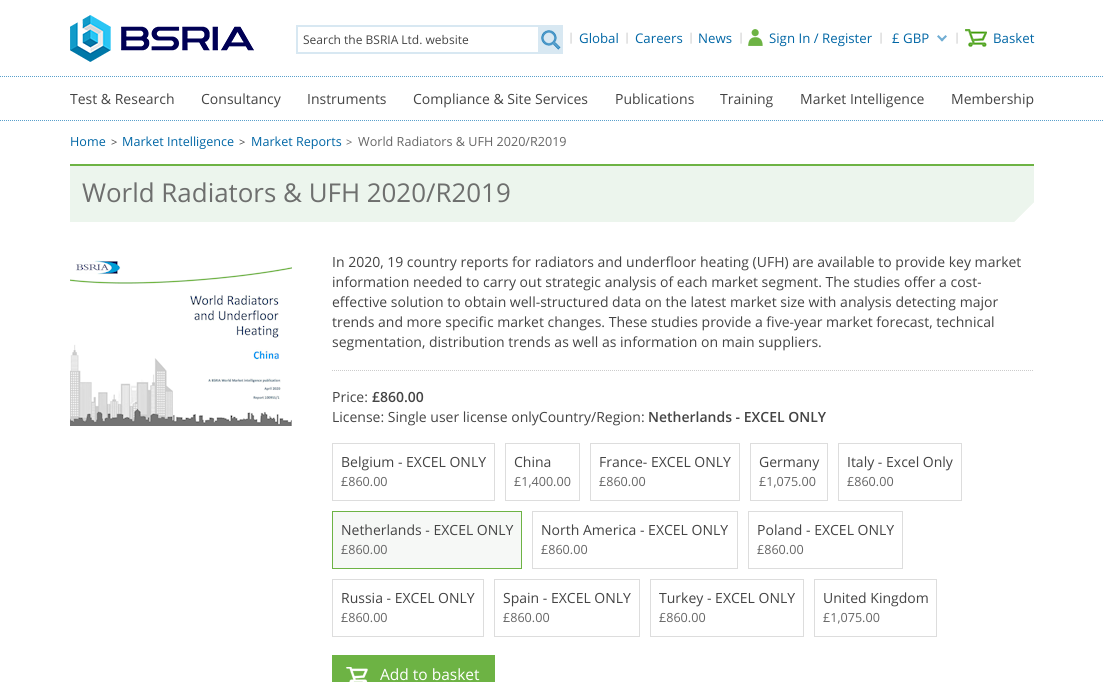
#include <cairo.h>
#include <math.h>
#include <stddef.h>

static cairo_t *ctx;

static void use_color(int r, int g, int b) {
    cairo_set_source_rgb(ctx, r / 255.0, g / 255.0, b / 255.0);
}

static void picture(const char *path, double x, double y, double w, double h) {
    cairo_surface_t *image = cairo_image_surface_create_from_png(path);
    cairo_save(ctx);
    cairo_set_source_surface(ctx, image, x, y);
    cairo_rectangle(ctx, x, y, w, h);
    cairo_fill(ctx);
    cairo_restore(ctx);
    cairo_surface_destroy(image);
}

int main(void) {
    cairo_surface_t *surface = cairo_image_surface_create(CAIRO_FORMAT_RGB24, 1104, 682);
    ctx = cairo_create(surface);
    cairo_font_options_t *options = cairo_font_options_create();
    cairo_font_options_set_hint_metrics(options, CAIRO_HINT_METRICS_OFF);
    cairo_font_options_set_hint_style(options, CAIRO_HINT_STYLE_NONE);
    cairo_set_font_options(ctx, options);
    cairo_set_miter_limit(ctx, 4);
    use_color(255, 255, 255);
    cairo_paint(ctx);
    picture("img1.png", 70, 15, 184, 47);
    use_color(216, 232, 242);
    cairo_rectangle(ctx, 296, 25, 267, 29);
    cairo_fill(ctx);
    use_color(255, 255, 255);
    cairo_rectangle(ctx, 298, 27, 240, 25);
    cairo_fill(ctx);
    cairo_select_font_face(ctx, "Open Sans", CAIRO_FONT_SLANT_NORMAL, CAIRO_FONT_WEIGHT_NORMAL);
    cairo_set_font_size(ctx, 12);
    use_color(68, 68, 68);
    cairo_move_to(ctx, 303, 44);
    cairo_show_text(ctx, "Search the BSRIA Ltd. website");
    picture("img2.png", 541, 30, 20, 20);
    cairo_set_font_size(ctx, 11);
    use_color(187, 187, 187);
    cairo_move_to(ctx, 568, 41);
    cairo_show_text(ctx, "|");
    cairo_set_font_size(ctx, 13.25);
    use_color(0, 102, 165);
    cairo_move_to(ctx, 579, 43);
    cairo_show_text(ctx, "Global");
    cairo_set_font_size(ctx, 11);
    use_color(187, 187, 187);
    cairo_move_to(ctx, 624, 41);
    cairo_show_text(ctx, "|");
    cairo_set_font_size(ctx, 13.25);
    use_color(0, 102, 165);
    cairo_move_to(ctx, 635, 43);
    cairo_show_text(ctx, "Careers");
    cairo_set_font_size(ctx, 11);
    use_color(187, 187, 187);
    cairo_move_to(ctx, 688, 41);
    cairo_show_text(ctx, "|");
    cairo_set_font_size(ctx, 13.25);
    use_color(0, 102, 165);
    cairo_move_to(ctx, 698, 43);
    cairo_show_text(ctx, "News");
    cairo_set_font_size(ctx, 11);
    use_color(187, 187, 187);
    cairo_move_to(ctx, 738, 41);
    cairo_show_text(ctx, "|");
    picture("img3.png", 748, 29, 15, 17);
    cairo_set_font_size(ctx, 13.25);
    use_color(0, 102, 165);
    cairo_move_to(ctx, 769, 43);
    cairo_show_text(ctx, "Sign In / Register");
    cairo_set_font_size(ctx, 11);
    use_color(187, 187, 187);
    cairo_move_to(ctx, 878, 41);
    cairo_show_text(ctx, "|");
    cairo_set_font_size(ctx, 13.25);
    use_color(0, 102, 165);
    cairo_move_to(ctx, 892, 43);
    cairo_show_text(ctx, "£ GBP");
    use_color(112, 173, 211);
    cairo_new_path(ctx);
    cairo_move_to(ctx, 947, 36.5);
    cairo_line_to(ctx, 942, 41.5);
    cairo_line_to(ctx, 940.5, 40);
    cairo_line_to(ctx, 945.5, 35);
    cairo_close_path(ctx);
    cairo_fill(ctx);
    cairo_new_path(ctx);
    cairo_move_to(ctx, 943.5, 40);
    cairo_line_to(ctx, 942, 41.5);
    cairo_line_to(ctx, 937, 36.5);
    cairo_line_to(ctx, 938.5, 35);
    cairo_close_path(ctx);
    cairo_fill(ctx);
    cairo_set_font_size(ctx, 11);
    use_color(187, 187, 187);
    cairo_move_to(ctx, 954, 41);
    cairo_show_text(ctx, "|");
    picture("img4.png", 965, 29, 22, 18);
    cairo_set_font_size(ctx, 13.25);
    use_color(0, 102, 165);
    cairo_move_to(ctx, 993, 43);
    cairo_show_text(ctx, "Basket");
    cairo_new_path(ctx);
    cairo_move_to(ctx, 0, 76.5);
    cairo_line_to(ctx, 1104, 76.5);
    use_color(89, 160, 204);
    cairo_set_line_width(ctx, 1);
    cairo_set_dash(ctx, (double[]){1, 1}, 2, 0);
    cairo_stroke(ctx);
    cairo_new_path(ctx);
    cairo_move_to(ctx, 0, 120.5);
    cairo_line_to(ctx, 1104, 120.5);
    cairo_stroke(ctx);
    cairo_set_font_size(ctx, 14);
    use_color(68, 68, 68);
    cairo_move_to(ctx, 70, 104);
    cairo_show_text(ctx, "Test & Research");
    cairo_move_to(ctx, 201, 104);
    cairo_show_text(ctx, "Consultancy");
    cairo_move_to(ctx, 307, 104);
    cairo_show_text(ctx, "Instruments");
    cairo_move_to(ctx, 413, 104);
    cairo_show_text(ctx, "Compliance & Site Services");
    cairo_move_to(ctx, 615, 104);
    cairo_show_text(ctx, "Publications");
    cairo_move_to(ctx, 720, 104);
    cairo_show_text(ctx, "Training");
    cairo_move_to(ctx, 800, 104);
    cairo_show_text(ctx, "Market Intelligence");
    cairo_move_to(ctx, 951, 104);
    cairo_show_text(ctx, "Membership");
    cairo_set_font_size(ctx, 12.6);
    use_color(0, 102, 165);
    cairo_move_to(ctx, 70, 146);
    cairo_show_text(ctx, "Home");
    cairo_set_font_size(ctx, 11);
    use_color(68, 68, 68);
    cairo_move_to(ctx, 111, 146);
    cairo_show_text(ctx, ">");
    cairo_set_font_size(ctx, 12.6);
    use_color(0, 102, 165);
    cairo_move_to(ctx, 122, 146);
    cairo_show_text(ctx, "Market Intelligence");
    cairo_set_font_size(ctx, 11);
    use_color(68, 68, 68);
    cairo_move_to(ctx, 239, 146);
    cairo_show_text(ctx, ">");
    cairo_set_font_size(ctx, 12.6);
    use_color(0, 102, 165);
    cairo_move_to(ctx, 251, 146);
    cairo_show_text(ctx, "Market Reports");
    cairo_set_font_size(ctx, 11);
    use_color(102, 102, 102);
    cairo_move_to(ctx, 346, 146);
    cairo_show_text(ctx, ">");
    cairo_set_font_size(ctx, 12.6);
    cairo_move_to(ctx, 358, 146);
    cairo_show_text(ctx, "World Radiators & UFH 2020/R2019");
    use_color(236, 245, 237);
    cairo_rectangle(ctx, 70, 166, 964, 56);
    cairo_fill(ctx);
    use_color(109, 179, 68);
    cairo_rectangle(ctx, 70, 164, 964, 2);
    cairo_fill(ctx);
    cairo_set_font_size(ctx, 25.9);
    use_color(110, 111, 110);
    cairo_move_to(ctx, 82, 202);
    cairo_show_text(ctx, "World Radiators & UFH 2020/R2019");
    use_color(255, 255, 255);
    cairo_new_path(ctx);
    cairo_move_to(ctx, 1034, 222);
    cairo_line_to(ctx, 1014, 222);
    cairo_line_to(ctx, 1034, 202);
    cairo_close_path(ctx);
    cairo_fill(ctx);
    use_color(236, 245, 237);
    cairo_new_path(ctx);
    cairo_move_to(ctx, 1014, 222);
    cairo_line_to(ctx, 1014, 202);
    cairo_line_to(ctx, 1034, 202);
    cairo_close_path(ctx);
    cairo_fill(ctx);
    picture("img5.png", 70, 260, 222, 166);
    cairo_set_font_size(ctx, 14);
    use_color(68, 68, 68);
    cairo_move_to(ctx, 332, 267);
    cairo_show_text(ctx, "In 2020, 19 country reports for radiators and underfloor heating (UFH) are available to provide key market");
    cairo_move_to(ctx, 332, 287);
    cairo_show_text(ctx, "information needed to carry out strategic analysis of each market segment. The studies offer a cost-");
    cairo_move_to(ctx, 332, 307);
    cairo_show_text(ctx, "effective solution to obtain well-structured data on the latest market size with analysis detecting major");
    cairo_move_to(ctx, 332, 327);
    cairo_show_text(ctx, "trends and more specific market changes. These studies provide a five-year market forecast, technical");
    cairo_move_to(ctx, 332, 347);
    cairo_show_text(ctx, "segmentation, distribution trends as well as information on main suppliers.");
    cairo_new_path(ctx);
    cairo_move_to(ctx, 332, 370.5);
    cairo_line_to(ctx, 1034, 370.5);
    use_color(204, 204, 204);
    cairo_stroke(ctx);
    use_color(68, 68, 68);
    cairo_move_to(ctx, 332, 402);
    cairo_show_text(ctx, "Price:");
    cairo_select_font_face(ctx, "Open Sans SemiBold", CAIRO_FONT_SLANT_NORMAL, CAIRO_FONT_WEIGHT_NORMAL);
    cairo_move_to(ctx, 372, 402);
    cairo_show_text(ctx, "£860.00");
    cairo_select_font_face(ctx, "Open Sans", CAIRO_FONT_SLANT_NORMAL, CAIRO_FONT_WEIGHT_NORMAL);
    cairo_move_to(ctx, 332, 422);
    cairo_show_text(ctx, "License: Single user license onlyCountry/Region:");
    cairo_select_font_face(ctx, "Open Sans SemiBold", CAIRO_FONT_SLANT_NORMAL, CAIRO_FONT_WEIGHT_NORMAL);
    cairo_move_to(ctx, 648, 422);
    cairo_show_text(ctx, "Netherlands - EXCEL ONLY");
    cairo_rectangle(ctx, 332.5, 443.5, 162, 57);
    use_color(221, 221, 221);
    cairo_set_dash(ctx, NULL, 0, 0);
    cairo_stroke(ctx);
    cairo_select_font_face(ctx, "Open Sans", CAIRO_FONT_SLANT_NORMAL, CAIRO_FONT_WEIGHT_NORMAL);
    use_color(68, 68, 68);
    cairo_move_to(ctx, 341, 467);
    cairo_show_text(ctx, "Belgium - EXCEL ONLY");
    cairo_set_font_size(ctx, 12.6);
    use_color(102, 102, 102);
    cairo_move_to(ctx, 341, 486);
    cairo_show_text(ctx, "£860.00");
    cairo_rectangle(ctx, 505.5, 443.5, 74, 57);
    use_color(221, 221, 221);
    cairo_stroke(ctx);
    cairo_set_font_size(ctx, 14);
    use_color(68, 68, 68);
    cairo_move_to(ctx, 514, 467);
    cairo_show_text(ctx, "China");
    cairo_set_font_size(ctx, 12.6);
    use_color(102, 102, 102);
    cairo_move_to(ctx, 514, 486);
    cairo_show_text(ctx, "£1,400.00");
    cairo_rectangle(ctx, 590.5, 443.5, 149, 57);
    use_color(221, 221, 221);
    cairo_stroke(ctx);
    cairo_set_font_size(ctx, 14);
    use_color(68, 68, 68);
    cairo_move_to(ctx, 599, 467);
    cairo_show_text(ctx, "France- EXCEL ONLY");
    cairo_set_font_size(ctx, 12.6);
    use_color(102, 102, 102);
    cairo_move_to(ctx, 599, 486);
    cairo_show_text(ctx, "£860.00");
    cairo_rectangle(ctx, 750.5, 443.5, 77, 57);
    use_color(221, 221, 221);
    cairo_stroke(ctx);
    cairo_set_font_size(ctx, 14);
    use_color(68, 68, 68);
    cairo_move_to(ctx, 759, 467);
    cairo_show_text(ctx, "Germany");
    cairo_set_font_size(ctx, 12.6);
    use_color(102, 102, 102);
    cairo_move_to(ctx, 759, 486);
    cairo_show_text(ctx, "£1,075.00");
    cairo_rectangle(ctx, 838.5, 443.5, 123, 57);
    use_color(221, 221, 221);
    cairo_stroke(ctx);
    cairo_set_font_size(ctx, 14);
    use_color(68, 68, 68);
    cairo_move_to(ctx, 847, 467);
    cairo_show_text(ctx, "Italy - Excel Only");
    cairo_set_font_size(ctx, 12.6);
    use_color(102, 102, 102);
    cairo_move_to(ctx, 847, 486);
    cairo_show_text(ctx, "£860.00");
    use_color(246, 248, 246);
    cairo_rectangle(ctx, 332.5, 511.5, 189, 57);
    cairo_fill_preserve(ctx);
    use_color(109, 179, 68);
    cairo_stroke(ctx);
    cairo_set_font_size(ctx, 14);
    use_color(68, 68, 68);
    cairo_move_to(ctx, 341, 535);
    cairo_show_text(ctx, "Netherlands - EXCEL ONLY");
    cairo_set_font_size(ctx, 12.6);
    use_color(102, 102, 102);
    cairo_move_to(ctx, 341, 554);
    cairo_show_text(ctx, "£860.00");
    cairo_rectangle(ctx, 532.5, 511.5, 205, 57);
    use_color(221, 221, 221);
    cairo_stroke(ctx);
    cairo_set_font_size(ctx, 14);
    use_color(68, 68, 68);
    cairo_move_to(ctx, 541, 535);
    cairo_show_text(ctx, "North America - EXCEL ONLY");
    cairo_set_font_size(ctx, 12.6);
    use_color(102, 102, 102);
    cairo_move_to(ctx, 541, 554);
    cairo_show_text(ctx, "£860.00");
    cairo_rectangle(ctx, 748.5, 511.5, 154, 57);
    use_color(221, 221, 221);
    cairo_stroke(ctx);
    cairo_set_font_size(ctx, 14);
    use_color(68, 68, 68);
    cairo_move_to(ctx, 757, 535);
    cairo_show_text(ctx, "Poland - EXCEL ONLY");
    cairo_set_font_size(ctx, 12.6);
    use_color(102, 102, 102);
    cairo_move_to(ctx, 757, 554);
    cairo_show_text(ctx, "£860.00");
    cairo_rectangle(ctx, 332.5, 579.5, 151, 57);
    use_color(221, 221, 221);
    cairo_stroke(ctx);
    cairo_set_font_size(ctx, 14);
    use_color(68, 68, 68);
    cairo_move_to(ctx, 341, 603);
    cairo_show_text(ctx, "Russia - EXCEL ONLY");
    cairo_set_font_size(ctx, 12.6);
    use_color(102, 102, 102);
    cairo_move_to(ctx, 341, 622);
    cairo_show_text(ctx, "£860.00");
    cairo_rectangle(ctx, 494.5, 579.5, 145, 57);
    use_color(221, 221, 221);
    cairo_stroke(ctx);
    cairo_set_font_size(ctx, 14);
    use_color(68, 68, 68);
    cairo_move_to(ctx, 503, 603);
    cairo_show_text(ctx, "Spain - EXCEL ONLY");
    cairo_set_font_size(ctx, 12.6);
    use_color(102, 102, 102);
    cairo_move_to(ctx, 503, 622);
    cairo_show_text(ctx, "£860.00");
    cairo_rectangle(ctx, 650.5, 579.5, 153, 57);
    use_color(221, 221, 221);
    cairo_stroke(ctx);
    cairo_set_font_size(ctx, 14);
    use_color(68, 68, 68);
    cairo_move_to(ctx, 659, 603);
    cairo_show_text(ctx, "Turkey - EXCEL ONLY");
    cairo_set_font_size(ctx, 12.6);
    use_color(102, 102, 102);
    cairo_move_to(ctx, 659, 622);
    cairo_show_text(ctx, "£860.00");
    cairo_rectangle(ctx, 814.5, 579.5, 122, 57);
    use_color(221, 221, 221);
    cairo_stroke(ctx);
    cairo_set_font_size(ctx, 14);
    use_color(68, 68, 68);
    cairo_move_to(ctx, 823, 603);
    cairo_show_text(ctx, "United Kingdom");
    cairo_set_font_size(ctx, 12.6);
    use_color(102, 102, 102);
    cairo_move_to(ctx, 823, 622);
    cairo_show_text(ctx, "£1,075.00");
    use_color(109, 179, 68);
    cairo_rectangle(ctx, 332, 655, 163, 27);
    cairo_fill(ctx);
    picture("img6.png", 346, 667, 22, 15);
    cairo_set_font_size(ctx, 15.5);
    use_color(255, 255, 255);
    cairo_move_to(ctx, 380, 680);
    cairo_show_text(ctx, "Add to basket");
    cairo_surface_write_to_png(surface, "result.png");
    cairo_font_options_destroy(options);
    cairo_destroy(ctx);
    cairo_surface_destroy(surface);
    return 0;
}
